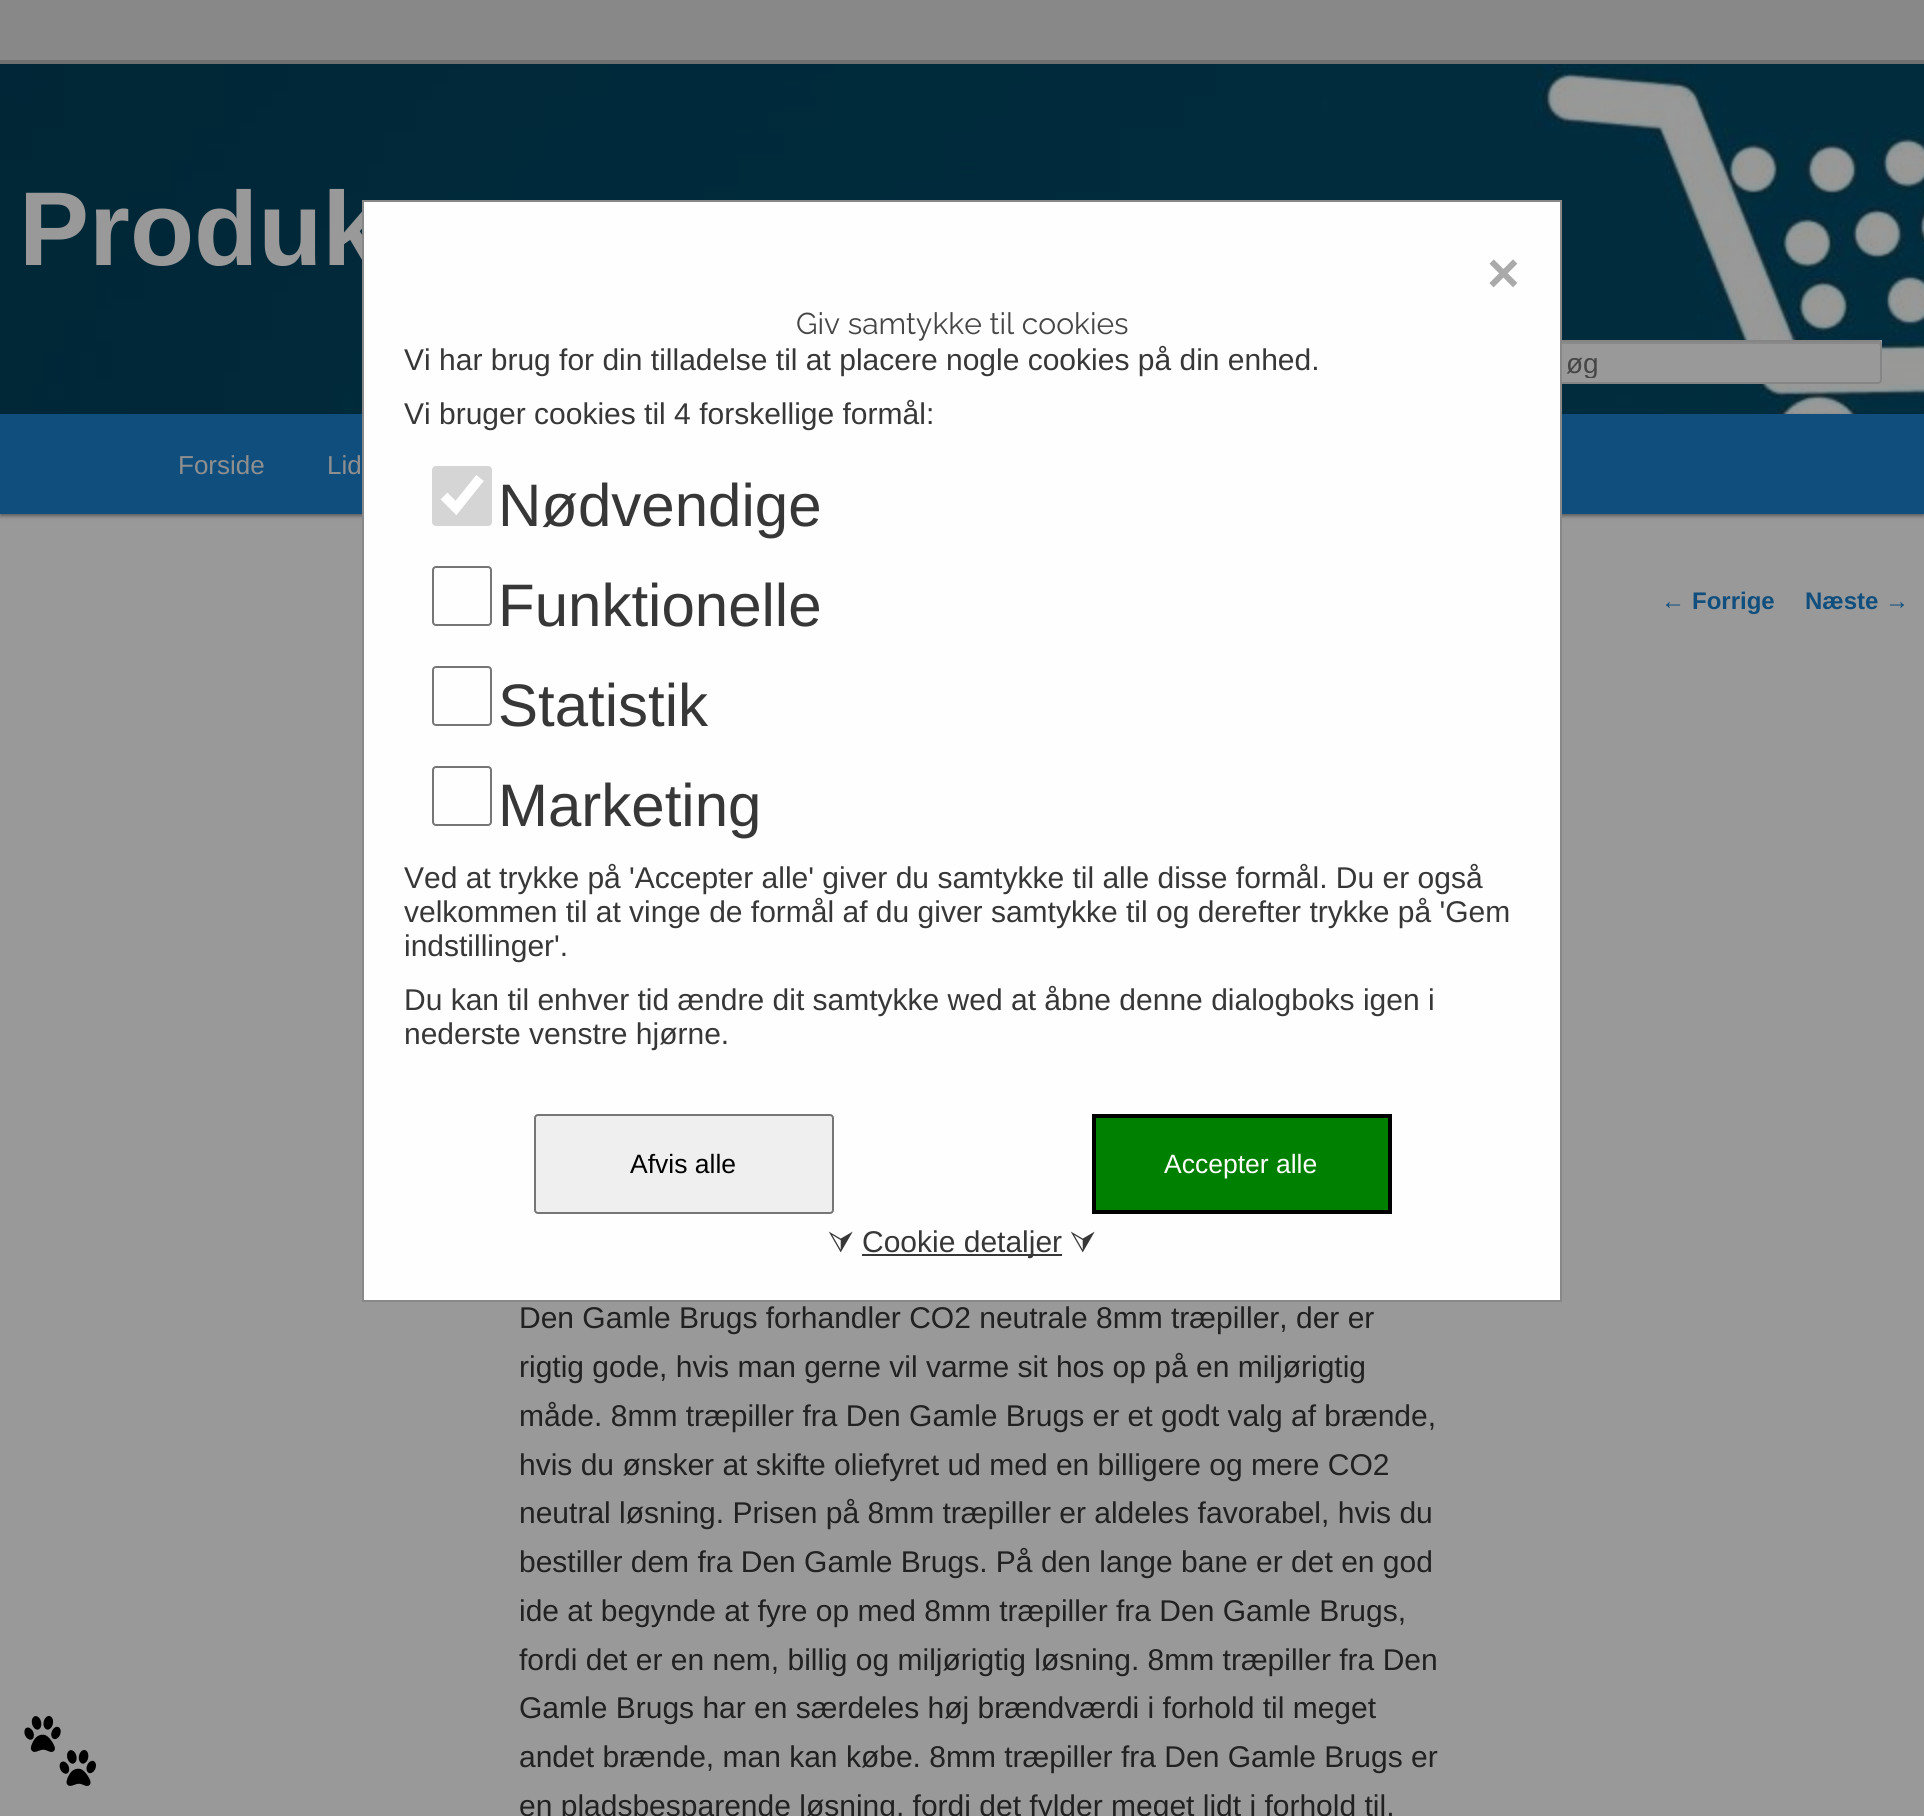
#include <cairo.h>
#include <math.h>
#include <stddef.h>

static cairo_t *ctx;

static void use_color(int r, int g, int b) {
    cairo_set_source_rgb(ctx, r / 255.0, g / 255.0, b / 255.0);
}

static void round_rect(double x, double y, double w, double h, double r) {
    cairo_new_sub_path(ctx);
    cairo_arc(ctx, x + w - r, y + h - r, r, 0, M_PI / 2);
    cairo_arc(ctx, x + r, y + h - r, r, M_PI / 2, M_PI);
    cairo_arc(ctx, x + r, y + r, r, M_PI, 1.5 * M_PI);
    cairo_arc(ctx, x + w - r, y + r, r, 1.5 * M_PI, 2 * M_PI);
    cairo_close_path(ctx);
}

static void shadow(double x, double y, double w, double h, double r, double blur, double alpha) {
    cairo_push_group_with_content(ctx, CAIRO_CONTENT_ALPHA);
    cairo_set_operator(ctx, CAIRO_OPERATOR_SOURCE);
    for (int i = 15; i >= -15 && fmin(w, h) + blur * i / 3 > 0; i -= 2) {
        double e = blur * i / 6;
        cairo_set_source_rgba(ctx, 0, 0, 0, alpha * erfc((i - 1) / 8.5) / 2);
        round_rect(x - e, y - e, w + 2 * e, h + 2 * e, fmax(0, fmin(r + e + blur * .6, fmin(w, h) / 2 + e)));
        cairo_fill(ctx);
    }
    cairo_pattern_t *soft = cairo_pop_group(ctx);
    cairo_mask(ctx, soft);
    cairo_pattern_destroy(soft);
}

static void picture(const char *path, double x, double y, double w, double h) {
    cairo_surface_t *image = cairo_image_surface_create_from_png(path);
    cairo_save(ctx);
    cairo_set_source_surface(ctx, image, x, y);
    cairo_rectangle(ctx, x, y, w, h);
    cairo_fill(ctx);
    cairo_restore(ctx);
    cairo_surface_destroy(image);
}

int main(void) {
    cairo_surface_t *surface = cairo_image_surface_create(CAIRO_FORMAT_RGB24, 1924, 1816);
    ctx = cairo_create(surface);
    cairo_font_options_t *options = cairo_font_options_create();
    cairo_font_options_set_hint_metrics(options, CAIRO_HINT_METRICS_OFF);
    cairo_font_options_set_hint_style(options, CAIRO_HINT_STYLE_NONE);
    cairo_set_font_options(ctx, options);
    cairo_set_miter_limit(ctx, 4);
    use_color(136, 136, 136);
    cairo_paint(ctx);
    use_color(153, 153, 153);
    cairo_rectangle(ctx, 0, 514, 1924, 1302);
    cairo_fill(ctx);
    picture("img1.png", 0, 64, 1924, 350);
    use_color(112, 112, 112);
    cairo_rectangle(ctx, 0, 60, 1924, 4);
    cairo_fill(ctx);
    cairo_select_font_face(ctx, "Liberation Sans", CAIRO_FONT_SLANT_NORMAL, CAIRO_FONT_WEIGHT_BOLD);
    cairo_set_font_size(ctx, 105);
    use_color(153, 153, 153);
    cairo_move_to(ctx, 19, 265);
    cairo_show_text(ctx, "Produk");
    cairo_rectangle(ctx, 1562, 340, 320, 44);
    cairo_fill(ctx);
    use_color(138, 138, 138);
    cairo_new_path(ctx);
    cairo_move_to(ctx, 1494, 344);
    cairo_line_to(ctx, 1878, 344);
    cairo_curve_to(ctx, 1879, 344, 1880, 345, 1880, 346);
    cairo_line_to(ctx, 1880, 344);
    cairo_curve_to(ctx, 1880, 343, 1879, 342, 1878, 342);
    cairo_line_to(ctx, 1494, 342);
    cairo_curve_to(ctx, 1493, 342, 1492, 343, 1492, 344);
    cairo_line_to(ctx, 1492, 346);
    cairo_curve_to(ctx, 1492, 345, 1493, 344, 1494, 344);
    cairo_close_path(ctx);
    cairo_fill(ctx);
    round_rect(1491, 341, 390, 42, 3);
    use_color(133, 133, 133);
    cairo_stroke(ctx);
    cairo_save(ctx);
    cairo_rectangle(ctx, 1548, 346, 312, 32);
    cairo_clip(ctx);
    cairo_select_font_face(ctx, "Liberation Sans", CAIRO_FONT_SLANT_NORMAL, CAIRO_FONT_WEIGHT_NORMAL);
    cairo_set_font_size(ctx, 28);
    use_color(70, 70, 70);
    cairo_move_to(ctx, 1566, 373);
    cairo_show_text(ctx, "øg");
    cairo_restore(ctx);
    use_color(0, 0, 0);
    shadow(0, 416, 1924, 100, 0, 2, 0.4);
    use_color(15, 78, 125);
    cairo_rectangle(ctx, 0, 414, 1924, 100);
    cairo_fill(ctx);
    cairo_select_font_face(ctx, "Liberation Sans", CAIRO_FONT_SLANT_NORMAL, CAIRO_FONT_WEIGHT_NORMAL);
    cairo_set_font_size(ctx, 26);
    use_color(143, 143, 143);
    cairo_move_to(ctx, 178, 474);
    cairo_show_text(ctx, "Forside");
    cairo_move_to(ctx, 327, 474);
    cairo_show_text(ctx, "Lid");
    cairo_set_font_size(ctx, 24);
    use_color(15, 78, 125);
    cairo_move_to(ctx, 1661, 609);
    cairo_show_text(ctx, "←");
    cairo_select_font_face(ctx, "Liberation Sans", CAIRO_FONT_SLANT_NORMAL, CAIRO_FONT_WEIGHT_BOLD);
    cairo_move_to(ctx, 1692, 609);
    cairo_show_text(ctx, "Forrige");
    cairo_move_to(ctx, 1805, 609);
    cairo_show_text(ctx, "Næste");
    cairo_select_font_face(ctx, "Liberation Sans", CAIRO_FONT_SLANT_NORMAL, CAIRO_FONT_WEIGHT_NORMAL);
    cairo_move_to(ctx, 1885, 609);
    cairo_show_text(ctx, "→");
    cairo_set_font_size(ctx, 30);
    use_color(33, 33, 33);
    cairo_move_to(ctx, 519, 1328);
    cairo_show_text(ctx, "Den Gamle Brugs forhandler CO2 neutrale 8mm træpiller, der er");
    cairo_move_to(ctx, 519, 1377);
    cairo_show_text(ctx, "rigtig gode, hvis man gerne vil varme sit hos op på en miljørigtig");
    cairo_move_to(ctx, 519, 1426);
    cairo_show_text(ctx, "måde. 8mm træpiller fra Den Gamle Brugs er et godt valg af brænde,");
    cairo_move_to(ctx, 519, 1475);
    cairo_show_text(ctx, "hvis du ønsker at skifte oliefyret ud med en billigere og mere CO2");
    cairo_move_to(ctx, 519, 1523);
    cairo_show_text(ctx, "neutral løsning. Prisen på 8mm træpiller er aldeles favorabel, hvis du");
    cairo_move_to(ctx, 519, 1572);
    cairo_show_text(ctx, "bestiller dem fra Den Gamle Brugs. På den lange bane er det en god");
    cairo_move_to(ctx, 519, 1621);
    cairo_show_text(ctx, "ide at begynde at fyre op med 8mm træpiller fra Den Gamle Brugs,");
    cairo_move_to(ctx, 519, 1670);
    cairo_show_text(ctx, "fordi det er en nem, billig og miljørigtig løsning. 8mm træpiller fra Den");
    cairo_move_to(ctx, 519, 1718);
    cairo_show_text(ctx, "Gamle Brugs har en særdeles høj brændværdi i forhold til meget");
    cairo_move_to(ctx, 519, 1767);
    cairo_show_text(ctx, "andet brænde, man kan købe. 8mm træpiller fra Den Gamle Brugs er");
    cairo_move_to(ctx, 519, 1816);
    cairo_show_text(ctx, "en pladsbesparende løsning, fordi det fylder meget lidt i forhold til,");
    use_color(254, 254, 254);
    cairo_rectangle(ctx, 363, 201, 1198, 1100);
    cairo_fill_preserve(ctx);
    use_color(136, 136, 136);
    cairo_stroke(ctx);
    cairo_select_font_face(ctx, "Liberation Sans", CAIRO_FONT_SLANT_NORMAL, CAIRO_FONT_WEIGHT_BOLD);
    cairo_set_font_size(ctx, 56);
    use_color(170, 170, 170);
    cairo_move_to(ctx, 1487, 292);
    cairo_show_text(ctx, "×");
    cairo_select_font_face(ctx, "Raleway", CAIRO_FONT_SLANT_NORMAL, CAIRO_FONT_WEIGHT_NORMAL);
    cairo_set_font_size(ctx, 30);
    use_color(70, 70, 70);
    cairo_move_to(ctx, 796, 334);
    cairo_show_text(ctx, "Giv samtykke til cookies");
    cairo_select_font_face(ctx, "Liberation Sans", CAIRO_FONT_SLANT_NORMAL, CAIRO_FONT_WEIGHT_NORMAL);
    use_color(55, 55, 55);
    cairo_move_to(ctx, 404, 370);
    cairo_show_text(ctx, "Vi har brug for din tilladelse til at placere nogle cookies på din enhed.");
    cairo_move_to(ctx, 404, 424);
    cairo_show_text(ctx, "Vi bruger cookies til 4 forskellige formål:");
    use_color(213, 213, 213);
    round_rect(432, 466, 60, 60, 4);
    cairo_fill(ctx);
    cairo_new_path(ctx);
    cairo_move_to(ctx, 444, 496);
    cairo_line_to(ctx, 456, 508);
    cairo_line_to(ctx, 480, 478);
    use_color(255, 255, 255);
    cairo_set_line_width(ctx, 9.6);
    cairo_stroke(ctx);
    cairo_set_font_size(ctx, 60);
    use_color(55, 55, 55);
    cairo_move_to(ctx, 498, 526);
    cairo_show_text(ctx, "Nødvendige");
    round_rect(433, 567, 58, 58, 3);
    use_color(118, 118, 118);
    cairo_set_line_width(ctx, 2);
    cairo_stroke(ctx);
    use_color(55, 55, 55);
    cairo_move_to(ctx, 498, 626);
    cairo_show_text(ctx, "Funktionelle");
    round_rect(433, 667, 58, 58, 3);
    use_color(118, 118, 118);
    cairo_stroke(ctx);
    use_color(55, 55, 55);
    cairo_move_to(ctx, 498, 726);
    cairo_show_text(ctx, "Statistik");
    round_rect(433, 767, 58, 58, 3);
    use_color(118, 118, 118);
    cairo_stroke(ctx);
    use_color(55, 55, 55);
    cairo_move_to(ctx, 498, 826);
    cairo_show_text(ctx, "Marketing");
    cairo_set_font_size(ctx, 30);
    cairo_move_to(ctx, 404, 888);
    cairo_show_text(ctx, "Ved at trykke på 'Accepter alle' giver du samtykke til alle disse formål. Du er også");
    cairo_move_to(ctx, 404, 922);
    cairo_show_text(ctx, "velkommen til at vinge de formål af du giver samtykke til og derefter trykke på 'Gem");
    cairo_move_to(ctx, 404, 956);
    cairo_show_text(ctx, "indstillinger'.");
    cairo_move_to(ctx, 404, 1010);
    cairo_show_text(ctx, "Du kan til enhver tid ændre dit samtykke wed at åbne denne dialogboks igen i");
    cairo_move_to(ctx, 404, 1044);
    cairo_show_text(ctx, "nederste venstre hjørne.");
    use_color(239, 239, 239);
    round_rect(535, 1115, 298, 98, 3);
    cairo_fill_preserve(ctx);
    use_color(118, 118, 118);
    cairo_stroke(ctx);
    cairo_set_font_size(ctx, 26.5);
    use_color(0, 0, 0);
    cairo_move_to(ctx, 630, 1173);
    cairo_show_text(ctx, "Afvis alle");
    use_color(0, 128, 0);
    cairo_rectangle(ctx, 1094, 1116, 296, 96);
    cairo_fill_preserve(ctx);
    use_color(0, 0, 0);
    cairo_set_line_width(ctx, 4);
    cairo_stroke(ctx);
    use_color(255, 255, 255);
    cairo_move_to(ctx, 1164, 1173);
    cairo_show_text(ctx, "Accepter alle");
    cairo_select_font_face(ctx, "FreeSans", CAIRO_FONT_SLANT_NORMAL, CAIRO_FONT_WEIGHT_NORMAL);
    cairo_set_font_size(ctx, 30);
    use_color(55, 55, 55);
    cairo_move_to(ctx, 828, 1252);
    cairo_show_text(ctx, "⮛");
    cairo_rectangle(ctx, 862, 1254, 200, 2);
    cairo_fill(ctx);
    cairo_select_font_face(ctx, "Liberation Sans", CAIRO_FONT_SLANT_NORMAL, CAIRO_FONT_WEIGHT_NORMAL);
    cairo_move_to(ctx, 862, 1252);
    cairo_show_text(ctx, "Cookie detaljer");
    cairo_select_font_face(ctx, "FreeSans", CAIRO_FONT_SLANT_NORMAL, CAIRO_FONT_WEIGHT_NORMAL);
    cairo_move_to(ctx, 1070, 1252);
    cairo_show_text(ctx, "⮛");
    picture("img2.png", 24, 1715, 72, 71);
    cairo_surface_write_to_png(surface, "result.png");
    cairo_font_options_destroy(options);
    cairo_destroy(ctx);
    cairo_surface_destroy(surface);
    return 0;
}
